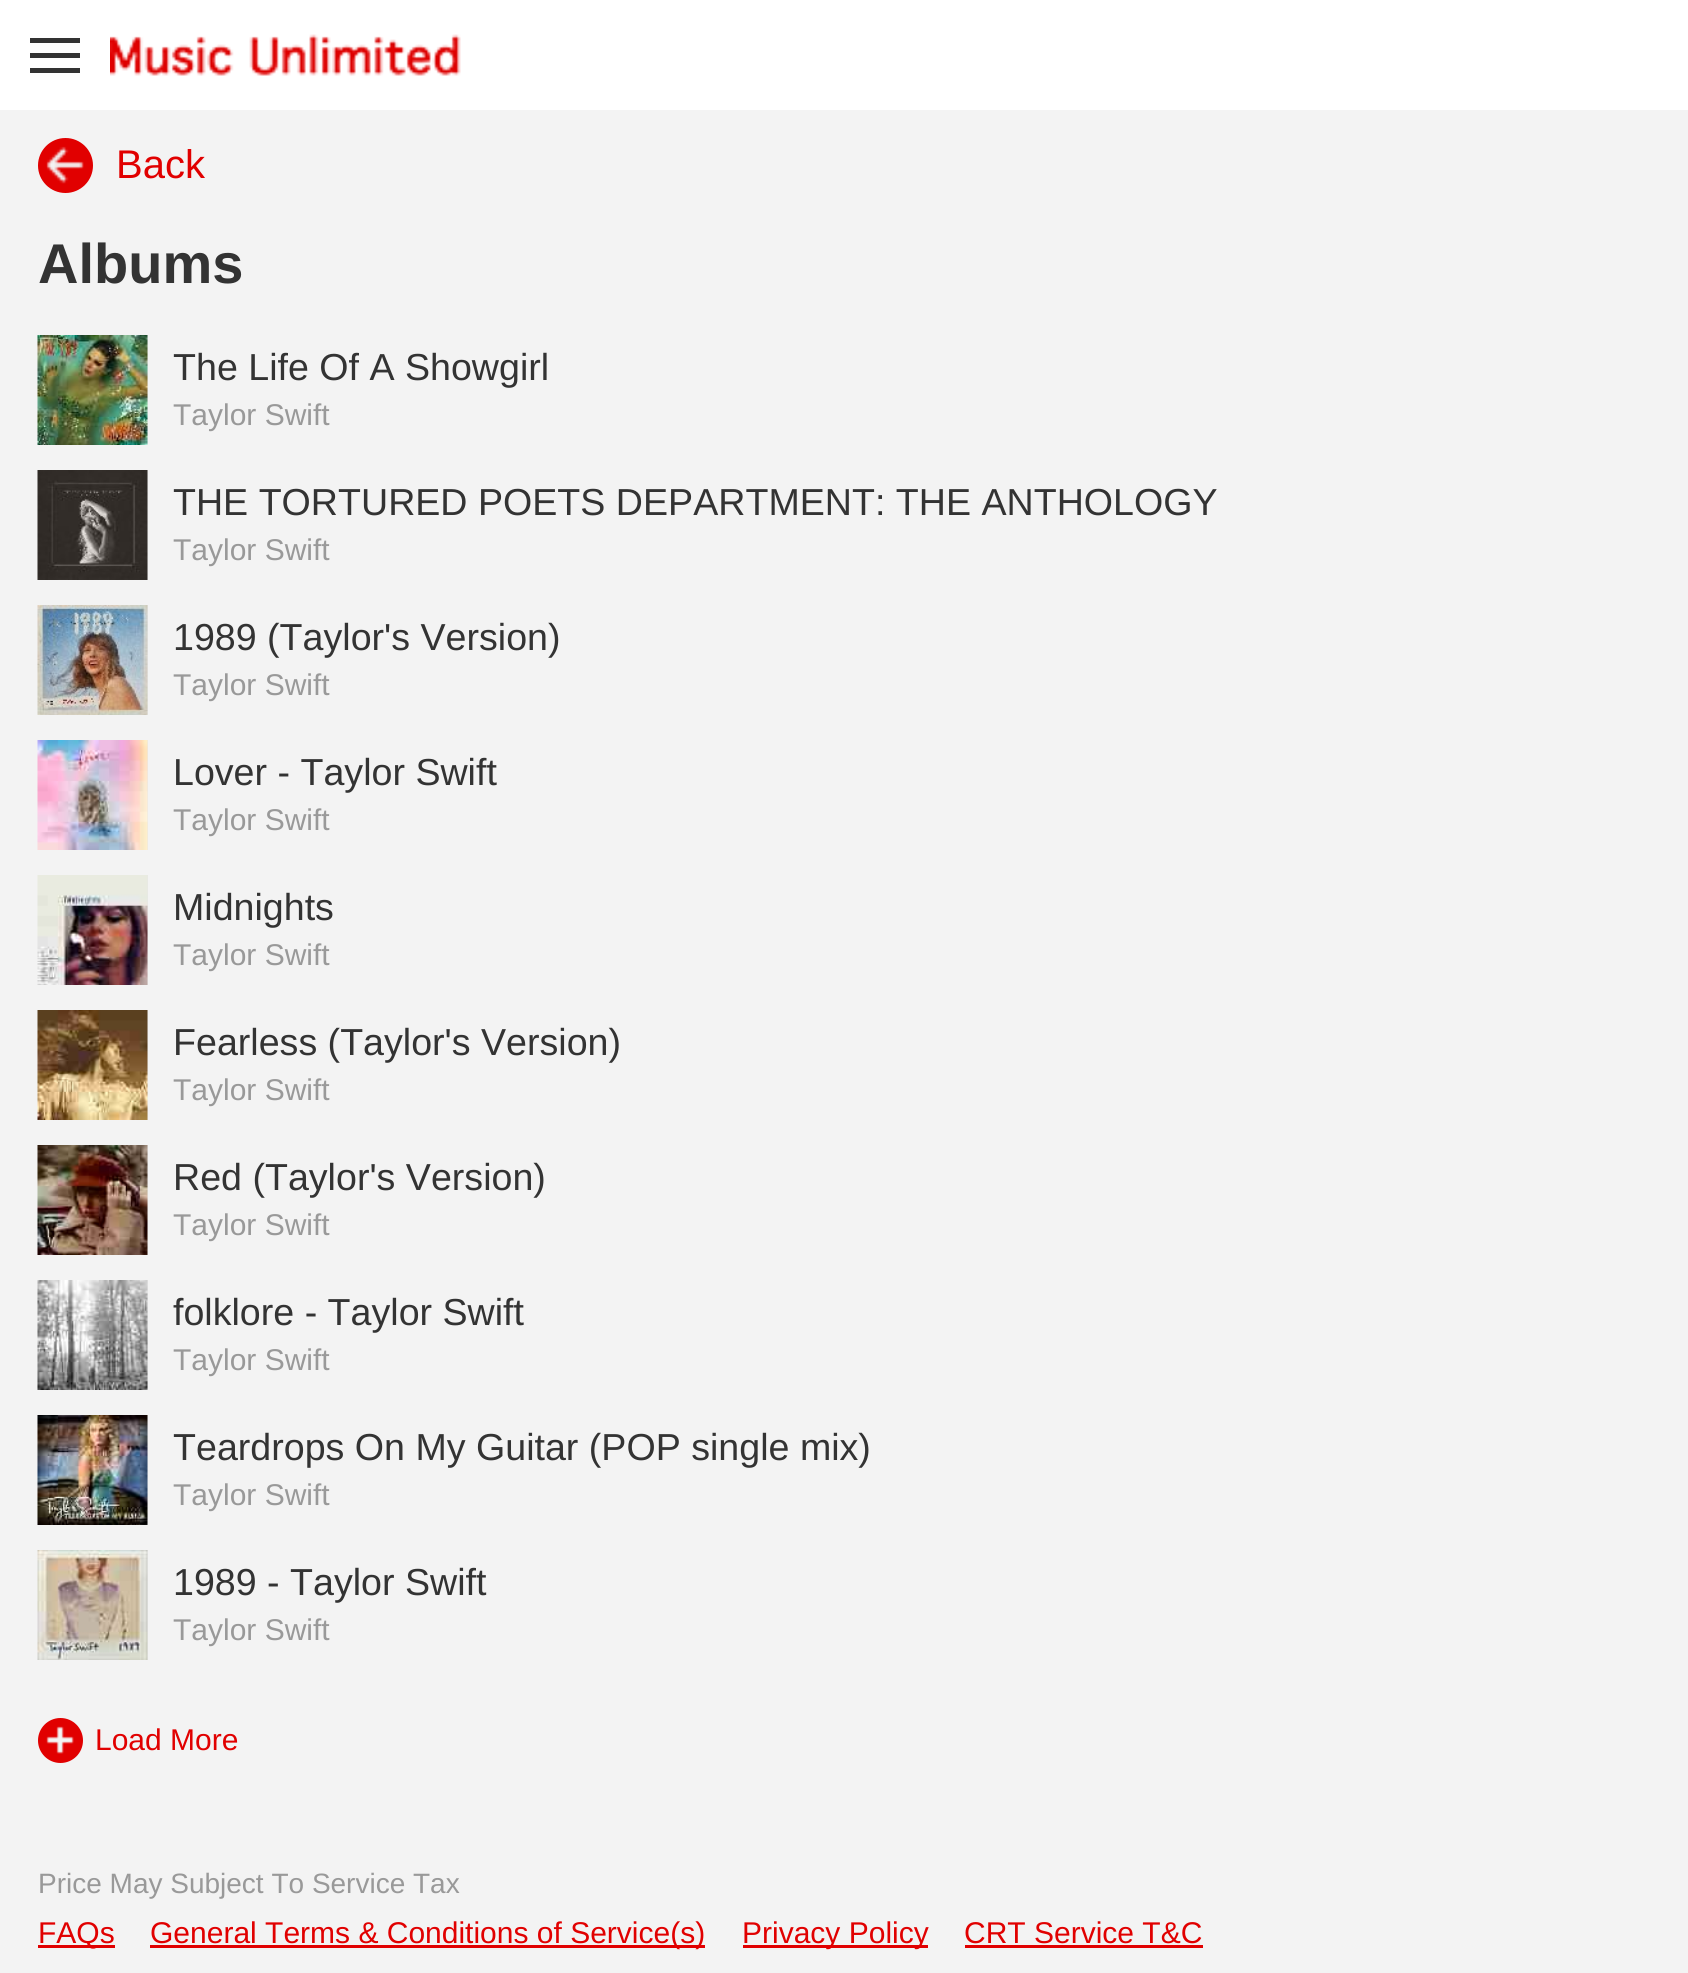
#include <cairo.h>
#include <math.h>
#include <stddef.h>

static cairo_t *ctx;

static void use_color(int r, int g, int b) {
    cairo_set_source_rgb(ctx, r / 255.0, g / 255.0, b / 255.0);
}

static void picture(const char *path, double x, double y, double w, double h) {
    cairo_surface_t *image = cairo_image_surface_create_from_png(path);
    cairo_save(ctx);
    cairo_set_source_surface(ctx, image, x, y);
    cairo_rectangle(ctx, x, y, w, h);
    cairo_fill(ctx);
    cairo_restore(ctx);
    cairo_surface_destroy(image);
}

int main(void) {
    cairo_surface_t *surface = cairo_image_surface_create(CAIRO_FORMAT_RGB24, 1688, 1973);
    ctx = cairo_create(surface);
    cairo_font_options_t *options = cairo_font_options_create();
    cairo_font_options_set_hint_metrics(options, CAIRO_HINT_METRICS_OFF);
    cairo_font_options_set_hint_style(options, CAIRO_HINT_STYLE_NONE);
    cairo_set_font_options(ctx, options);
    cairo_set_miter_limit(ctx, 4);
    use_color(243, 243, 243);
    cairo_paint(ctx);
    use_color(255, 255, 255);
    cairo_rectangle(ctx, 0, 0, 1688, 110);
    cairo_fill(ctx);
    use_color(51, 51, 51);
    cairo_rectangle(ctx, 30, 38, 50, 5);
    cairo_fill(ctx);
    cairo_rectangle(ctx, 30, 53, 50, 5);
    cairo_fill(ctx);
    cairo_rectangle(ctx, 30, 68, 50, 5);
    cairo_fill(ctx);
    picture("img1.png", 110, 34, 351, 42);
    use_color(225, 0, 0);
    cairo_arc(ctx, 65.5, 165.5, 27.5, 0, 2 * M_PI);
    cairo_fill(ctx);
    picture("img2.png", 46, 146, 38, 38);
    cairo_select_font_face(ctx, "Liberation Sans", CAIRO_FONT_SLANT_NORMAL, CAIRO_FONT_WEIGHT_NORMAL);
    cairo_set_font_size(ctx, 40);
    cairo_move_to(ctx, 116, 178);
    cairo_show_text(ctx, "Back");
    cairo_select_font_face(ctx, "Liberation Sans", CAIRO_FONT_SLANT_NORMAL, CAIRO_FONT_WEIGHT_BOLD);
    cairo_set_font_size(ctx, 56);
    use_color(51, 51, 51);
    cairo_move_to(ctx, 38, 283);
    cairo_show_text(ctx, "Albums");
    use_color(231, 231, 231);
    cairo_rectangle(ctx, 147, 335, 1, 110);
    cairo_fill(ctx);
    picture("img3.png", 37, 335, 111, 110);
    cairo_select_font_face(ctx, "Liberation Sans", CAIRO_FONT_SLANT_NORMAL, CAIRO_FONT_WEIGHT_NORMAL);
    cairo_set_font_size(ctx, 37.6);
    use_color(51, 51, 51);
    cairo_move_to(ctx, 173, 380);
    cairo_show_text(ctx, "The Life Of A Showgirl");
    cairo_set_font_size(ctx, 30);
    use_color(153, 153, 153);
    cairo_move_to(ctx, 173, 425);
    cairo_show_text(ctx, "Taylor Swift");
    use_color(231, 231, 231);
    cairo_rectangle(ctx, 147, 470, 1, 110);
    cairo_fill(ctx);
    picture("img4.png", 37, 470, 111, 110);
    cairo_set_font_size(ctx, 37.6);
    use_color(51, 51, 51);
    cairo_move_to(ctx, 173, 515);
    cairo_show_text(ctx, "THE TORTURED POETS DEPARTMENT: THE ANTHOLOGY");
    cairo_set_font_size(ctx, 30);
    use_color(153, 153, 153);
    cairo_move_to(ctx, 173, 560);
    cairo_show_text(ctx, "Taylor Swift");
    use_color(231, 231, 231);
    cairo_rectangle(ctx, 147, 605, 1, 110);
    cairo_fill(ctx);
    picture("img5.png", 37, 605, 111, 110);
    cairo_set_font_size(ctx, 37.6);
    use_color(51, 51, 51);
    cairo_move_to(ctx, 173, 650);
    cairo_show_text(ctx, "1989 (Taylor's Version)");
    cairo_set_font_size(ctx, 30);
    use_color(153, 153, 153);
    cairo_move_to(ctx, 173, 695);
    cairo_show_text(ctx, "Taylor Swift");
    use_color(231, 231, 231);
    cairo_rectangle(ctx, 147, 740, 1, 110);
    cairo_fill(ctx);
    picture("img6.png", 37, 740, 111, 110);
    cairo_set_font_size(ctx, 37.6);
    use_color(51, 51, 51);
    cairo_move_to(ctx, 173, 785);
    cairo_show_text(ctx, "Lover - Taylor Swift");
    cairo_set_font_size(ctx, 30);
    use_color(153, 153, 153);
    cairo_move_to(ctx, 173, 830);
    cairo_show_text(ctx, "Taylor Swift");
    use_color(231, 231, 231);
    cairo_rectangle(ctx, 147, 875, 1, 110);
    cairo_fill(ctx);
    picture("img7.png", 37, 875, 111, 110);
    cairo_set_font_size(ctx, 37.6);
    use_color(51, 51, 51);
    cairo_move_to(ctx, 173, 920);
    cairo_show_text(ctx, "Midnights");
    cairo_set_font_size(ctx, 30);
    use_color(153, 153, 153);
    cairo_move_to(ctx, 173, 965);
    cairo_show_text(ctx, "Taylor Swift");
    use_color(231, 231, 231);
    cairo_rectangle(ctx, 147, 1010, 1, 110);
    cairo_fill(ctx);
    picture("img8.png", 37, 1010, 111, 110);
    cairo_set_font_size(ctx, 37.6);
    use_color(51, 51, 51);
    cairo_move_to(ctx, 173, 1055);
    cairo_show_text(ctx, "Fearless (Taylor's Version)");
    cairo_set_font_size(ctx, 30);
    use_color(153, 153, 153);
    cairo_move_to(ctx, 173, 1100);
    cairo_show_text(ctx, "Taylor Swift");
    use_color(231, 231, 231);
    cairo_rectangle(ctx, 147, 1145, 1, 110);
    cairo_fill(ctx);
    picture("img9.png", 37, 1145, 111, 110);
    cairo_set_font_size(ctx, 37.6);
    use_color(51, 51, 51);
    cairo_move_to(ctx, 173, 1190);
    cairo_show_text(ctx, "Red (Taylor's Version)");
    cairo_set_font_size(ctx, 30);
    use_color(153, 153, 153);
    cairo_move_to(ctx, 173, 1235);
    cairo_show_text(ctx, "Taylor Swift");
    use_color(231, 231, 231);
    cairo_rectangle(ctx, 147, 1280, 1, 110);
    cairo_fill(ctx);
    picture("img10.png", 37, 1280, 111, 110);
    cairo_set_font_size(ctx, 37.6);
    use_color(51, 51, 51);
    cairo_move_to(ctx, 173, 1325);
    cairo_show_text(ctx, "folklore - Taylor Swift");
    cairo_set_font_size(ctx, 30);
    use_color(153, 153, 153);
    cairo_move_to(ctx, 173, 1370);
    cairo_show_text(ctx, "Taylor Swift");
    use_color(231, 231, 231);
    cairo_rectangle(ctx, 147, 1415, 1, 110);
    cairo_fill(ctx);
    picture("img11.png", 37, 1415, 111, 110);
    cairo_set_font_size(ctx, 37.6);
    use_color(51, 51, 51);
    cairo_move_to(ctx, 173, 1460);
    cairo_show_text(ctx, "Teardrops On My Guitar (POP single mix)");
    cairo_set_font_size(ctx, 30);
    use_color(153, 153, 153);
    cairo_move_to(ctx, 173, 1505);
    cairo_show_text(ctx, "Taylor Swift");
    use_color(231, 231, 231);
    cairo_rectangle(ctx, 147, 1550, 1, 110);
    cairo_fill(ctx);
    picture("img12.png", 37, 1550, 111, 110);
    cairo_set_font_size(ctx, 37.6);
    use_color(51, 51, 51);
    cairo_move_to(ctx, 173, 1595);
    cairo_show_text(ctx, "1989 - Taylor Swift");
    cairo_set_font_size(ctx, 30);
    use_color(153, 153, 153);
    cairo_move_to(ctx, 173, 1640);
    cairo_show_text(ctx, "Taylor Swift");
    use_color(225, 0, 0);
    cairo_new_path(ctx);
    cairo_arc(ctx, 60.5, 1740.5, 22.5, 0, 2 * M_PI);
    cairo_fill(ctx);
    picture("img13.png", 46, 1726, 28, 28);
    cairo_move_to(ctx, 95, 1750);
    cairo_show_text(ctx, "Load More");
    cairo_set_font_size(ctx, 28);
    use_color(153, 153, 153);
    cairo_move_to(ctx, 38, 1893);
    cairo_show_text(ctx, "Price May Subject To Service Tax");
    use_color(225, 0, 0);
    cairo_rectangle(ctx, 38, 1945, 77, 3);
    cairo_fill(ctx);
    cairo_set_font_size(ctx, 30);
    cairo_move_to(ctx, 38, 1943);
    cairo_show_text(ctx, "FAQs");
    cairo_rectangle(ctx, 150, 1945, 555, 3);
    cairo_fill(ctx);
    cairo_move_to(ctx, 150, 1943);
    cairo_show_text(ctx, "General Terms & Conditions of Service(s)");
    cairo_rectangle(ctx, 743, 1945, 185, 3);
    cairo_fill(ctx);
    cairo_move_to(ctx, 742, 1943);
    cairo_show_text(ctx, "Privacy Policy");
    cairo_move_to(ctx, 964, 1943);
    cairo_show_text(ctx, "CRT Service T&C");
    cairo_rectangle(ctx, 965, 1945, 238, 3);
    cairo_fill(ctx);
    cairo_surface_write_to_png(surface, "result.png");
    cairo_font_options_destroy(options);
    cairo_destroy(ctx);
    cairo_surface_destroy(surface);
    return 0;
}
